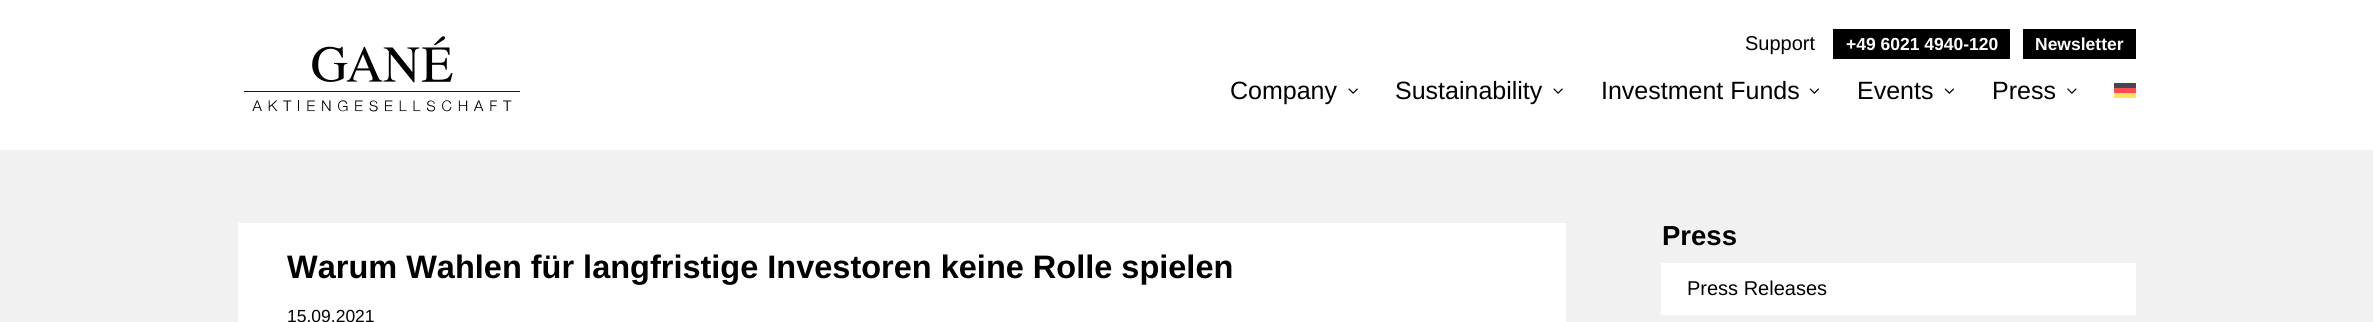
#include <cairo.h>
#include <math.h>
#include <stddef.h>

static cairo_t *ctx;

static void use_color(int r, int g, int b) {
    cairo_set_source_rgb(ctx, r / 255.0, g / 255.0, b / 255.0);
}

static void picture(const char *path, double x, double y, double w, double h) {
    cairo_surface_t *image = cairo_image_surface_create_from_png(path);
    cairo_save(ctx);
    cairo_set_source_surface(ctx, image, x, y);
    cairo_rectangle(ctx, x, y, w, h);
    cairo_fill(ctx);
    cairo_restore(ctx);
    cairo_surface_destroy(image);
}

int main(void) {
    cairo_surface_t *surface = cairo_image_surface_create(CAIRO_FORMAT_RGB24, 2373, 322);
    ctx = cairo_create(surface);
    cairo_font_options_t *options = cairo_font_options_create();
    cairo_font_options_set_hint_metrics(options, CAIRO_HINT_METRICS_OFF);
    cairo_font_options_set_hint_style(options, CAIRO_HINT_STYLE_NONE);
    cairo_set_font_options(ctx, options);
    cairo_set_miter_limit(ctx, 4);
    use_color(255, 255, 255);
    cairo_paint(ctx);
    picture("img1.png", 244, 36, 276, 76);
    cairo_select_font_face(ctx, "Liberation Sans", CAIRO_FONT_SLANT_NORMAL, CAIRO_FONT_WEIGHT_NORMAL);
    cairo_set_font_size(ctx, 20);
    use_color(0, 0, 0);
    cairo_move_to(ctx, 1745, 50);
    cairo_show_text(ctx, "Support");
    cairo_rectangle(ctx, 1833, 29, 177, 30);
    cairo_fill(ctx);
    cairo_select_font_face(ctx, "Liberation Sans", CAIRO_FONT_SLANT_NORMAL, CAIRO_FONT_WEIGHT_BOLD);
    cairo_set_font_size(ctx, 17.5);
    use_color(255, 255, 255);
    cairo_move_to(ctx, 1846, 50);
    cairo_show_text(ctx, "+49 6021 4940-120");
    use_color(0, 0, 0);
    cairo_rectangle(ctx, 2023, 29, 113, 30);
    cairo_fill(ctx);
    use_color(255, 255, 255);
    cairo_move_to(ctx, 2035, 50);
    cairo_show_text(ctx, "Newsletter");
    cairo_select_font_face(ctx, "Liberation Sans", CAIRO_FONT_SLANT_NORMAL, CAIRO_FONT_WEIGHT_NORMAL);
    cairo_set_font_size(ctx, 25);
    use_color(0, 0, 0);
    cairo_move_to(ctx, 1230, 99);
    cairo_show_text(ctx, "Company");
    picture("img2.png", 1348, 88, 10, 6);
    cairo_move_to(ctx, 1395, 99);
    cairo_show_text(ctx, "Sustainability");
    picture("img2.png", 1553, 88, 10, 6);
    cairo_move_to(ctx, 1601, 99);
    cairo_show_text(ctx, "Investment Funds");
    picture("img3.png", 1809, 88, 10, 6);
    cairo_move_to(ctx, 1857, 99);
    cairo_show_text(ctx, "Events");
    picture("img3.png", 1944, 88, 10, 6);
    cairo_move_to(ctx, 1992, 99);
    cairo_show_text(ctx, "Press");
    picture("img4.png", 2067, 88, 10, 6);
    use_color(70, 70, 85);
    cairo_rectangle(ctx, 2114, 83, 22, 5);
    cairo_fill(ctx);
    use_color(255, 75, 85);
    cairo_rectangle(ctx, 2114, 88, 22, 5);
    cairo_fill(ctx);
    use_color(255, 225, 90);
    cairo_rectangle(ctx, 2114, 93, 22, 5);
    cairo_fill(ctx);
    use_color(241, 241, 241);
    cairo_rectangle(ctx, 0, 150, 2373, 172);
    cairo_fill(ctx);
    use_color(255, 255, 255);
    cairo_rectangle(ctx, 238, 223, 1328, 99);
    cairo_fill(ctx);
    cairo_select_font_face(ctx, "Liberation Sans", CAIRO_FONT_SLANT_NORMAL, CAIRO_FONT_WEIGHT_BOLD);
    cairo_set_font_size(ctx, 32.5);
    use_color(0, 0, 0);
    cairo_move_to(ctx, 287, 278);
    cairo_show_text(ctx, "Warum Wahlen für langfristige Investoren keine Rolle spielen");
    cairo_select_font_face(ctx, "Liberation Sans", CAIRO_FONT_SLANT_NORMAL, CAIRO_FONT_WEIGHT_NORMAL);
    cairo_set_font_size(ctx, 17.5);
    cairo_move_to(ctx, 287, 322);
    cairo_show_text(ctx, "15.09.2021");
    cairo_select_font_face(ctx, "Liberation Sans", CAIRO_FONT_SLANT_NORMAL, CAIRO_FONT_WEIGHT_BOLD);
    cairo_set_font_size(ctx, 27.5);
    cairo_move_to(ctx, 1662, 245);
    cairo_show_text(ctx, "Press");
    use_color(255, 255, 255);
    cairo_rectangle(ctx, 1661, 263, 475, 52);
    cairo_fill(ctx);
    cairo_select_font_face(ctx, "Liberation Sans", CAIRO_FONT_SLANT_NORMAL, CAIRO_FONT_WEIGHT_NORMAL);
    cairo_set_font_size(ctx, 20);
    use_color(0, 0, 0);
    cairo_move_to(ctx, 1687, 295);
    cairo_show_text(ctx, "Press Releases");
    cairo_surface_write_to_png(surface, "result.png");
    cairo_font_options_destroy(options);
    cairo_destroy(ctx);
    cairo_surface_destroy(surface);
    return 0;
}
